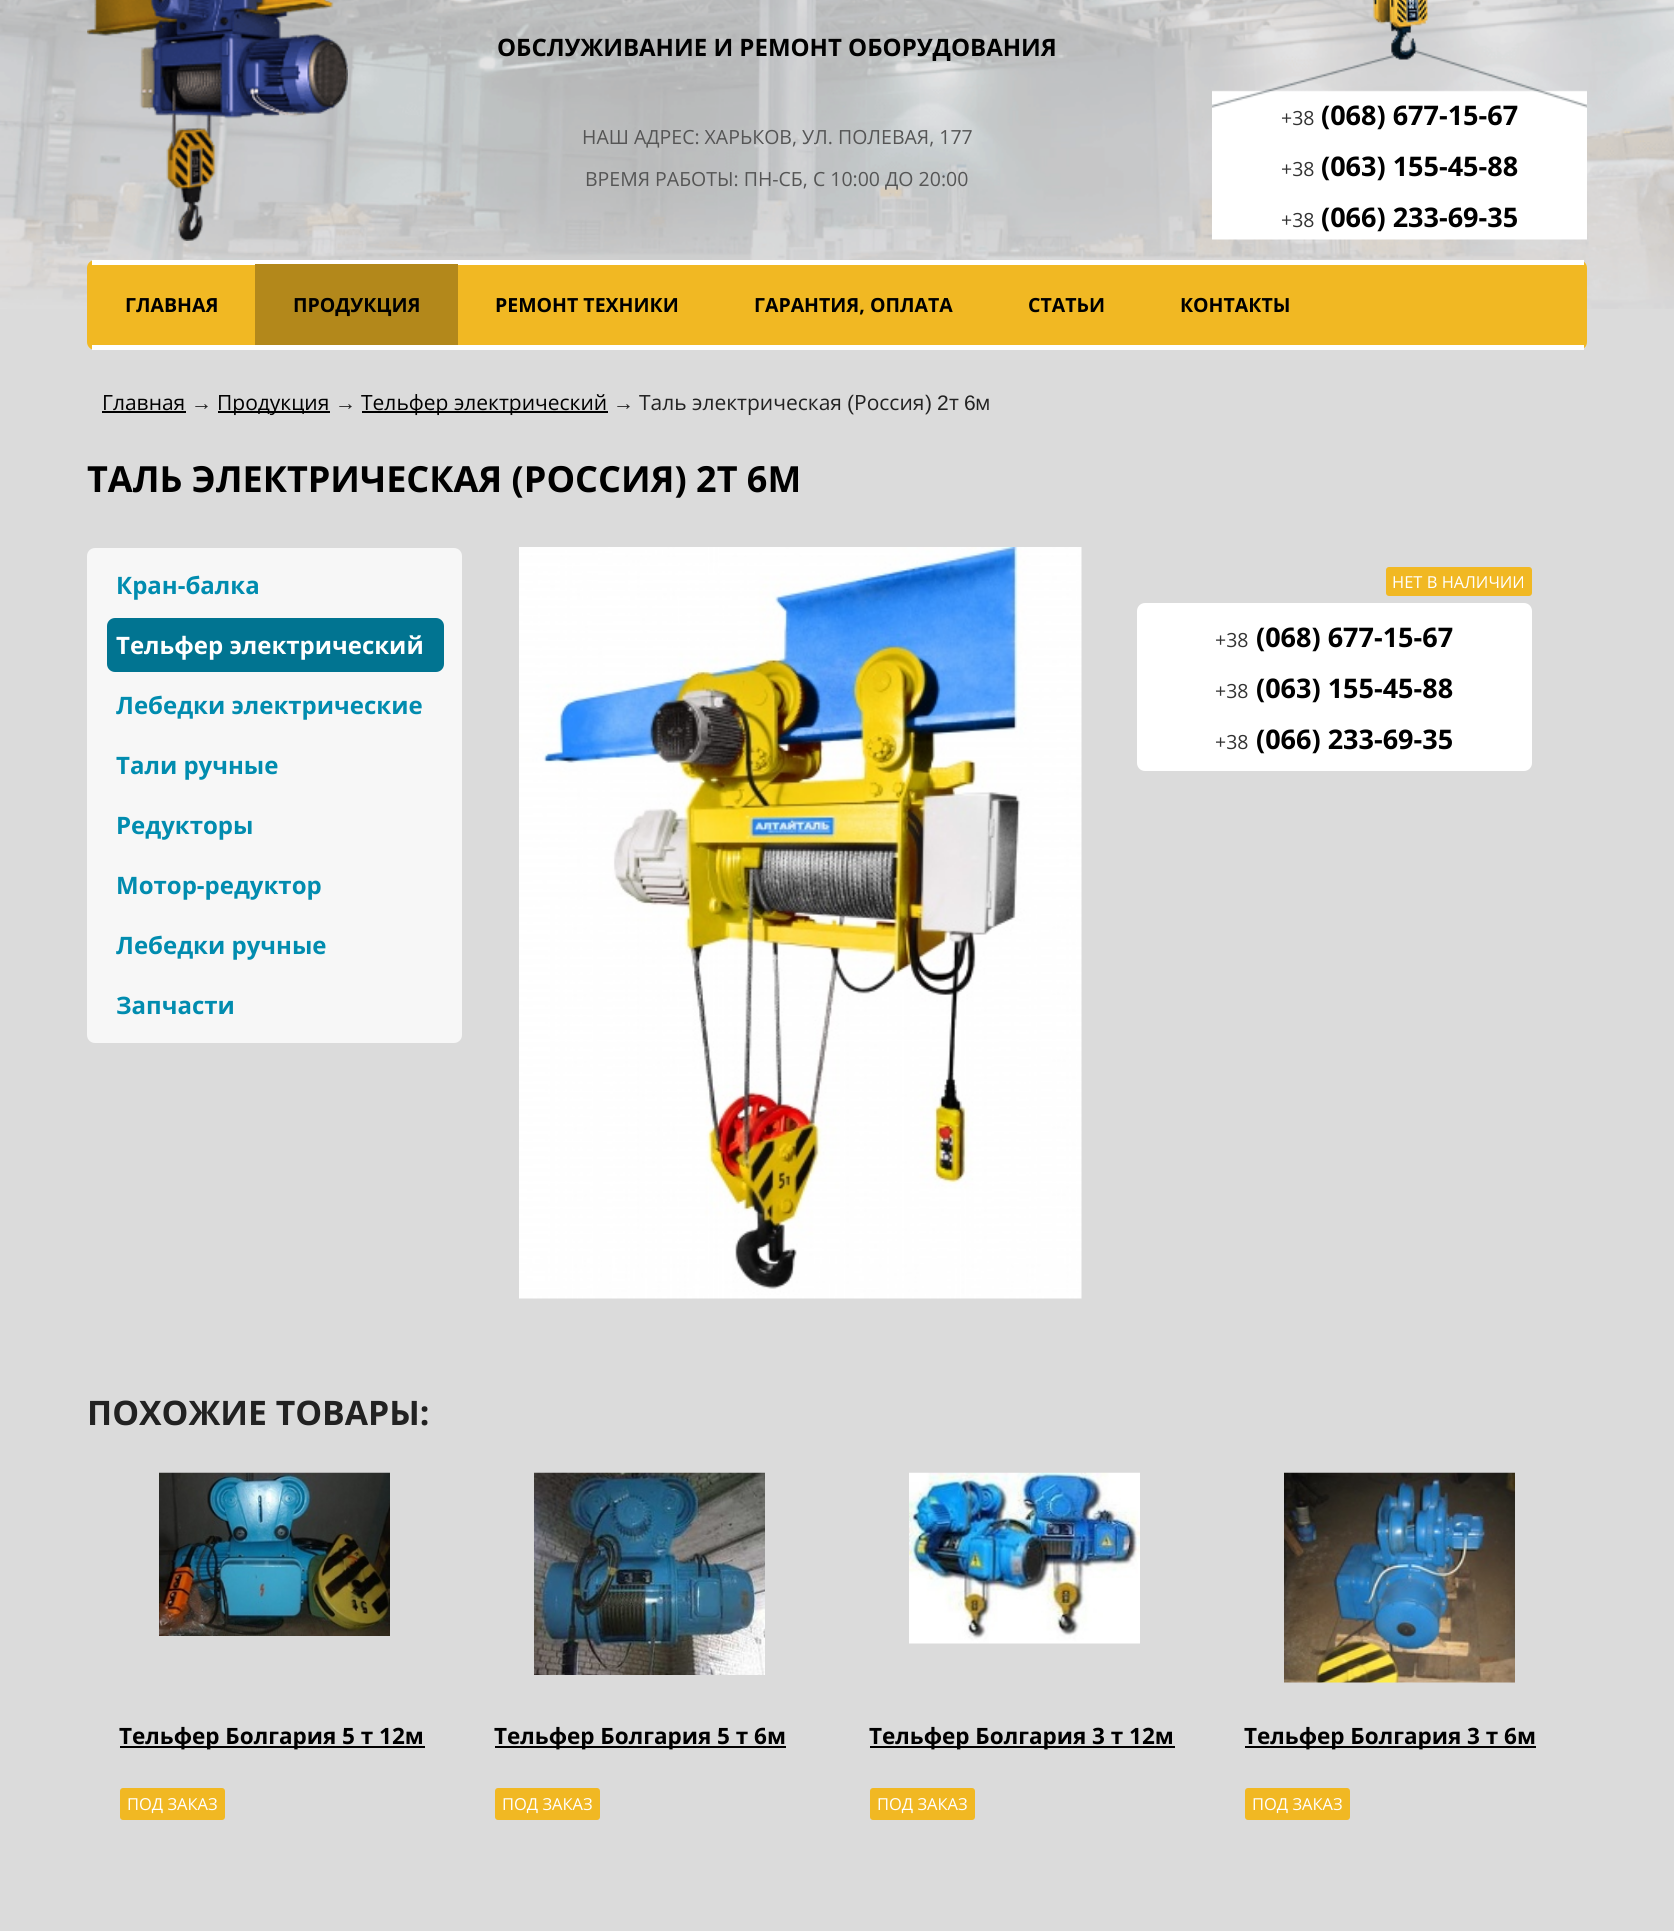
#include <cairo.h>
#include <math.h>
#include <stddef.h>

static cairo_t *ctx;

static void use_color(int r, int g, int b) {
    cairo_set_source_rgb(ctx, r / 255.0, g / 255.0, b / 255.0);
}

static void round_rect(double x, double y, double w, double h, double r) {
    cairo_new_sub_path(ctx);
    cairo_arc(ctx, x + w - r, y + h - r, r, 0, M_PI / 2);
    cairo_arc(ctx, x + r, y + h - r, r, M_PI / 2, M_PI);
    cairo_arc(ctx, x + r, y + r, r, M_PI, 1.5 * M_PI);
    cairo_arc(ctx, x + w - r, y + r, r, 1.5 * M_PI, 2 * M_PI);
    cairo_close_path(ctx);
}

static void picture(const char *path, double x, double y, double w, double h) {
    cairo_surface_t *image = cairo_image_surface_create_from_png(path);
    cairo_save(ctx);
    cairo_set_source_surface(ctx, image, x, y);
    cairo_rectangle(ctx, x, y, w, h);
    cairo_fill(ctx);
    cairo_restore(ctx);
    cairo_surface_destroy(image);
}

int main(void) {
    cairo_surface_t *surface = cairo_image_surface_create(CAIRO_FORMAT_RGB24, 1674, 1931);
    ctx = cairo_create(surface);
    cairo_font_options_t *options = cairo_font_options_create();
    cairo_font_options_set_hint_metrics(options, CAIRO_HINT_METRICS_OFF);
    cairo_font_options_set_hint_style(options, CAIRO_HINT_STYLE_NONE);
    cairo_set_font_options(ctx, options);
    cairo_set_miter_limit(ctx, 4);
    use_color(219, 219, 219);
    cairo_paint(ctx);
    picture("img1.png", 0, 0, 1674, 309);
    picture("img2.png", 87, 0, 261, 241);
    cairo_select_font_face(ctx, "Open Sans", CAIRO_FONT_SLANT_NORMAL, CAIRO_FONT_WEIGHT_BOLD);
    cairo_set_font_size(ctx, 24);
    use_color(0, 0, 0);
    cairo_move_to(ctx, 497, 56);
    cairo_show_text(ctx, "ОБСЛУЖИВАНИЕ И РЕМОНТ ОБОРУДОВАНИЯ");
    cairo_select_font_face(ctx, "Open Sans", CAIRO_FONT_SLANT_NORMAL, CAIRO_FONT_WEIGHT_NORMAL);
    cairo_set_font_size(ctx, 19.5);
    use_color(85, 85, 85);
    cairo_move_to(ctx, 582, 144);
    cairo_show_text(ctx, "НАШ АДРЕС: ХАРЬКОВ, УЛ. ПОЛЕВАЯ, 177");
    cairo_move_to(ctx, 585, 186);
    cairo_show_text(ctx, "ВРЕМЯ РАБОТЫ: ПН-СБ, С 10:00 ДО 20:00");
    picture("img3.png", 1212, 0, 375, 240);
    use_color(51, 51, 51);
    cairo_move_to(ctx, 1281, 125);
    cairo_show_text(ctx, "+38");
    cairo_select_font_face(ctx, "Open Sans", CAIRO_FONT_SLANT_NORMAL, CAIRO_FONT_WEIGHT_BOLD);
    cairo_set_font_size(ctx, 27);
    use_color(0, 0, 0);
    cairo_move_to(ctx, 1321, 125);
    cairo_show_text(ctx, "(068) 677-15-67");
    cairo_select_font_face(ctx, "Open Sans", CAIRO_FONT_SLANT_NORMAL, CAIRO_FONT_WEIGHT_NORMAL);
    cairo_set_font_size(ctx, 19.5);
    use_color(51, 51, 51);
    cairo_move_to(ctx, 1281, 176);
    cairo_show_text(ctx, "+38");
    cairo_select_font_face(ctx, "Open Sans", CAIRO_FONT_SLANT_NORMAL, CAIRO_FONT_WEIGHT_BOLD);
    cairo_set_font_size(ctx, 27);
    use_color(0, 0, 0);
    cairo_move_to(ctx, 1321, 176);
    cairo_show_text(ctx, "(063) 155-45-88");
    cairo_select_font_face(ctx, "Open Sans", CAIRO_FONT_SLANT_NORMAL, CAIRO_FONT_WEIGHT_NORMAL);
    cairo_set_font_size(ctx, 19.5);
    use_color(51, 51, 51);
    cairo_move_to(ctx, 1281, 227);
    cairo_show_text(ctx, "+38");
    cairo_select_font_face(ctx, "Open Sans", CAIRO_FONT_SLANT_NORMAL, CAIRO_FONT_WEIGHT_BOLD);
    cairo_set_font_size(ctx, 27);
    use_color(0, 0, 0);
    cairo_move_to(ctx, 1321, 227);
    cairo_show_text(ctx, "(066) 233-69-35");
    use_color(241, 184, 35);
    round_rect(87, 260, 1500, 90, 8);
    cairo_fill(ctx);
    use_color(255, 255, 255);
    cairo_rectangle(ctx, 92, 260, 1492, 5);
    cairo_fill(ctx);
    cairo_rectangle(ctx, 92, 345, 1492, 5);
    cairo_fill(ctx);
    cairo_set_font_size(ctx, 19.5);
    use_color(0, 0, 0);
    cairo_move_to(ctx, 125, 312);
    cairo_show_text(ctx, "ГЛАВНАЯ");
    use_color(179, 136, 27);
    cairo_rectangle(ctx, 255, 264, 203, 81);
    cairo_fill(ctx);
    use_color(0, 0, 0);
    cairo_move_to(ctx, 293, 312);
    cairo_show_text(ctx, "ПРОДУКЦИЯ");
    cairo_move_to(ctx, 495, 312);
    cairo_show_text(ctx, "РЕМОНТ ТЕХНИКИ");
    cairo_move_to(ctx, 754, 312);
    cairo_show_text(ctx, "ГАРАНТИЯ, ОПЛАТА");
    cairo_move_to(ctx, 1028, 312);
    cairo_show_text(ctx, "СТАТЬИ");
    cairo_move_to(ctx, 1180, 312);
    cairo_show_text(ctx, "КОНТАКТЫ");
    cairo_select_font_face(ctx, "Open Sans", CAIRO_FONT_SLANT_NORMAL, CAIRO_FONT_WEIGHT_NORMAL);
    cairo_set_font_size(ctx, 21);
    cairo_move_to(ctx, 102, 410);
    cairo_show_text(ctx, "Главная");
    cairo_rectangle(ctx, 102, 411, 84, 2);
    cairo_fill(ctx);
    cairo_select_font_face(ctx, "Liberation Sans", CAIRO_FONT_SLANT_NORMAL, CAIRO_FONT_WEIGHT_NORMAL);
    use_color(34, 34, 34);
    cairo_move_to(ctx, 191, 410);
    cairo_show_text(ctx, "→");
    use_color(0, 0, 0);
    cairo_rectangle(ctx, 218, 411, 112, 2);
    cairo_fill(ctx);
    cairo_select_font_face(ctx, "Open Sans", CAIRO_FONT_SLANT_NORMAL, CAIRO_FONT_WEIGHT_NORMAL);
    cairo_move_to(ctx, 217, 410);
    cairo_show_text(ctx, "Продукция");
    cairo_select_font_face(ctx, "Liberation Sans", CAIRO_FONT_SLANT_NORMAL, CAIRO_FONT_WEIGHT_NORMAL);
    use_color(34, 34, 34);
    cairo_move_to(ctx, 335, 410);
    cairo_show_text(ctx, "→");
    use_color(0, 0, 0);
    cairo_rectangle(ctx, 362, 411, 246, 2);
    cairo_fill(ctx);
    cairo_select_font_face(ctx, "Open Sans", CAIRO_FONT_SLANT_NORMAL, CAIRO_FONT_WEIGHT_NORMAL);
    cairo_move_to(ctx, 361, 410);
    cairo_show_text(ctx, "Тельфер электрический");
    cairo_select_font_face(ctx, "Liberation Sans", CAIRO_FONT_SLANT_NORMAL, CAIRO_FONT_WEIGHT_NORMAL);
    use_color(34, 34, 34);
    cairo_move_to(ctx, 613, 410);
    cairo_show_text(ctx, "→");
    cairo_select_font_face(ctx, "Open Sans", CAIRO_FONT_SLANT_NORMAL, CAIRO_FONT_WEIGHT_NORMAL);
    cairo_move_to(ctx, 639, 410);
    cairo_show_text(ctx, "Таль электрическая");
    cairo_select_font_face(ctx, "Liberation Sans", CAIRO_FONT_SLANT_NORMAL, CAIRO_FONT_WEIGHT_NORMAL);
    cairo_move_to(ctx, 847, 410);
    cairo_show_text(ctx, "(");
    cairo_select_font_face(ctx, "Open Sans", CAIRO_FONT_SLANT_NORMAL, CAIRO_FONT_WEIGHT_NORMAL);
    cairo_move_to(ctx, 854, 410);
    cairo_show_text(ctx, "Россия");
    cairo_select_font_face(ctx, "Liberation Sans", CAIRO_FONT_SLANT_NORMAL, CAIRO_FONT_WEIGHT_NORMAL);
    cairo_move_to(ctx, 925, 410);
    cairo_show_text(ctx, ")");
    cairo_move_to(ctx, 937, 410);
    cairo_show_text(ctx, "2");
    cairo_select_font_face(ctx, "Open Sans", CAIRO_FONT_SLANT_NORMAL, CAIRO_FONT_WEIGHT_NORMAL);
    cairo_move_to(ctx, 949, 410);
    cairo_show_text(ctx, "т");
    cairo_select_font_face(ctx, "Liberation Sans", CAIRO_FONT_SLANT_NORMAL, CAIRO_FONT_WEIGHT_NORMAL);
    cairo_move_to(ctx, 964, 410);
    cairo_show_text(ctx, "6");
    cairo_select_font_face(ctx, "Open Sans", CAIRO_FONT_SLANT_NORMAL, CAIRO_FONT_WEIGHT_NORMAL);
    cairo_move_to(ctx, 975, 410);
    cairo_show_text(ctx, "м");
    cairo_select_font_face(ctx, "Open Sans", CAIRO_FONT_SLANT_NORMAL, CAIRO_FONT_WEIGHT_BOLD);
    cairo_set_font_size(ctx, 36);
    use_color(0, 0, 0);
    cairo_move_to(ctx, 87, 492);
    cairo_show_text(ctx, "ТАЛЬ ЭЛЕКТРИЧЕСКАЯ (РОССИЯ) 2Т 6М");
    use_color(247, 247, 247);
    round_rect(87, 548, 375, 495, 8);
    cairo_fill(ctx);
    cairo_set_font_size(ctx, 24);
    use_color(1, 140, 175);
    cairo_move_to(ctx, 116, 594);
    cairo_show_text(ctx, "Кран-балка");
    use_color(1, 116, 145);
    round_rect(107, 618, 337, 54, 8);
    cairo_fill(ctx);
    use_color(255, 255, 255);
    cairo_move_to(ctx, 116, 654);
    cairo_show_text(ctx, "Тельфер электрический");
    use_color(1, 140, 175);
    cairo_move_to(ctx, 116, 714);
    cairo_show_text(ctx, "Лебедки электрические");
    cairo_move_to(ctx, 116, 774);
    cairo_show_text(ctx, "Тали ручные");
    cairo_move_to(ctx, 116, 834);
    cairo_show_text(ctx, "Редукторы");
    cairo_move_to(ctx, 116, 894);
    cairo_show_text(ctx, "Мотор-редуктор");
    cairo_move_to(ctx, 116, 954);
    cairo_show_text(ctx, "Лебедки ручные");
    cairo_move_to(ctx, 116, 1014);
    cairo_show_text(ctx, "Запчасти");
    picture("img4.png", 519, 547, 563, 752);
    use_color(241, 184, 35);
    round_rect(1386, 567, 146, 29, 3);
    cairo_fill(ctx);
    cairo_select_font_face(ctx, "Open Sans", CAIRO_FONT_SLANT_NORMAL, CAIRO_FONT_WEIGHT_NORMAL);
    cairo_set_font_size(ctx, 16.5);
    use_color(255, 255, 255);
    cairo_move_to(ctx, 1392, 588);
    cairo_show_text(ctx, "НЕТ В НАЛИЧИИ");
    round_rect(1137, 603, 395, 168, 8);
    cairo_fill(ctx);
    cairo_set_font_size(ctx, 19.5);
    use_color(51, 51, 51);
    cairo_move_to(ctx, 1215, 647);
    cairo_show_text(ctx, "+38");
    cairo_select_font_face(ctx, "Open Sans", CAIRO_FONT_SLANT_NORMAL, CAIRO_FONT_WEIGHT_BOLD);
    cairo_set_font_size(ctx, 27);
    use_color(0, 0, 0);
    cairo_move_to(ctx, 1256, 647);
    cairo_show_text(ctx, "(068) 677-15-67");
    cairo_select_font_face(ctx, "Open Sans", CAIRO_FONT_SLANT_NORMAL, CAIRO_FONT_WEIGHT_NORMAL);
    cairo_set_font_size(ctx, 19.5);
    use_color(51, 51, 51);
    cairo_move_to(ctx, 1215, 698);
    cairo_show_text(ctx, "+38");
    cairo_select_font_face(ctx, "Open Sans", CAIRO_FONT_SLANT_NORMAL, CAIRO_FONT_WEIGHT_BOLD);
    cairo_set_font_size(ctx, 27);
    use_color(0, 0, 0);
    cairo_move_to(ctx, 1256, 698);
    cairo_show_text(ctx, "(063) 155-45-88");
    cairo_select_font_face(ctx, "Open Sans", CAIRO_FONT_SLANT_NORMAL, CAIRO_FONT_WEIGHT_NORMAL);
    cairo_set_font_size(ctx, 19.5);
    use_color(51, 51, 51);
    cairo_move_to(ctx, 1215, 749);
    cairo_show_text(ctx, "+38");
    cairo_select_font_face(ctx, "Open Sans", CAIRO_FONT_SLANT_NORMAL, CAIRO_FONT_WEIGHT_BOLD);
    cairo_set_font_size(ctx, 27);
    use_color(0, 0, 0);
    cairo_move_to(ctx, 1256, 749);
    cairo_show_text(ctx, "(066) 233-69-35");
    cairo_set_font_size(ctx, 33.75);
    use_color(34, 34, 34);
    cairo_move_to(ctx, 87, 1425);
    cairo_show_text(ctx, "ПОХОЖИЕ ТОВАРЫ:");
    picture("img5.png", 159, 1472, 231, 164);
    use_color(0, 0, 0);
    cairo_rectangle(ctx, 120, 1746, 305, 2);
    cairo_fill(ctx);
    cairo_set_font_size(ctx, 22.5);
    cairo_move_to(ctx, 119, 1744);
    cairo_show_text(ctx, "Тельфер Болгария 5 т 12м");
    use_color(241, 184, 35);
    round_rect(120, 1788, 105, 32, 3);
    cairo_fill(ctx);
    cairo_select_font_face(ctx, "Open Sans", CAIRO_FONT_SLANT_NORMAL, CAIRO_FONT_WEIGHT_NORMAL);
    cairo_set_font_size(ctx, 16.5);
    use_color(255, 255, 255);
    cairo_move_to(ctx, 127, 1810);
    cairo_show_text(ctx, "ПОД ЗАКАЗ");
    picture("img6.png", 534, 1472, 231, 203);
    use_color(0, 0, 0);
    cairo_rectangle(ctx, 495, 1746, 291, 2);
    cairo_fill(ctx);
    cairo_select_font_face(ctx, "Open Sans", CAIRO_FONT_SLANT_NORMAL, CAIRO_FONT_WEIGHT_BOLD);
    cairo_set_font_size(ctx, 22.5);
    cairo_move_to(ctx, 494, 1744);
    cairo_show_text(ctx, "Тельфер Болгария 5 т 6м");
    use_color(241, 184, 35);
    round_rect(495, 1788, 105, 32, 3);
    cairo_fill(ctx);
    cairo_select_font_face(ctx, "Open Sans", CAIRO_FONT_SLANT_NORMAL, CAIRO_FONT_WEIGHT_NORMAL);
    cairo_set_font_size(ctx, 16.5);
    use_color(255, 255, 255);
    cairo_move_to(ctx, 502, 1810);
    cairo_show_text(ctx, "ПОД ЗАКАЗ");
    picture("img7.png", 909, 1472, 231, 172);
    use_color(0, 0, 0);
    cairo_rectangle(ctx, 870, 1746, 305, 2);
    cairo_fill(ctx);
    cairo_select_font_face(ctx, "Open Sans", CAIRO_FONT_SLANT_NORMAL, CAIRO_FONT_WEIGHT_BOLD);
    cairo_set_font_size(ctx, 22.5);
    cairo_move_to(ctx, 869, 1744);
    cairo_show_text(ctx, "Тельфер Болгария 3 т 12м");
    use_color(241, 184, 35);
    round_rect(870, 1788, 105, 32, 3);
    cairo_fill(ctx);
    cairo_select_font_face(ctx, "Open Sans", CAIRO_FONT_SLANT_NORMAL, CAIRO_FONT_WEIGHT_NORMAL);
    cairo_set_font_size(ctx, 16.5);
    use_color(255, 255, 255);
    cairo_move_to(ctx, 877, 1810);
    cairo_show_text(ctx, "ПОД ЗАКАЗ");
    picture("img8.png", 1284, 1472, 231, 211);
    use_color(0, 0, 0);
    cairo_rectangle(ctx, 1245, 1746, 291, 2);
    cairo_fill(ctx);
    cairo_select_font_face(ctx, "Open Sans", CAIRO_FONT_SLANT_NORMAL, CAIRO_FONT_WEIGHT_BOLD);
    cairo_set_font_size(ctx, 22.5);
    cairo_move_to(ctx, 1244, 1744);
    cairo_show_text(ctx, "Тельфер Болгария 3 т 6м");
    use_color(241, 184, 35);
    round_rect(1245, 1788, 105, 32, 3);
    cairo_fill(ctx);
    cairo_select_font_face(ctx, "Open Sans", CAIRO_FONT_SLANT_NORMAL, CAIRO_FONT_WEIGHT_NORMAL);
    cairo_set_font_size(ctx, 16.5);
    use_color(255, 255, 255);
    cairo_move_to(ctx, 1252, 1810);
    cairo_show_text(ctx, "ПОД ЗАКАЗ");
    cairo_surface_write_to_png(surface, "result.png");
    cairo_font_options_destroy(options);
    cairo_destroy(ctx);
    cairo_surface_destroy(surface);
    return 0;
}
